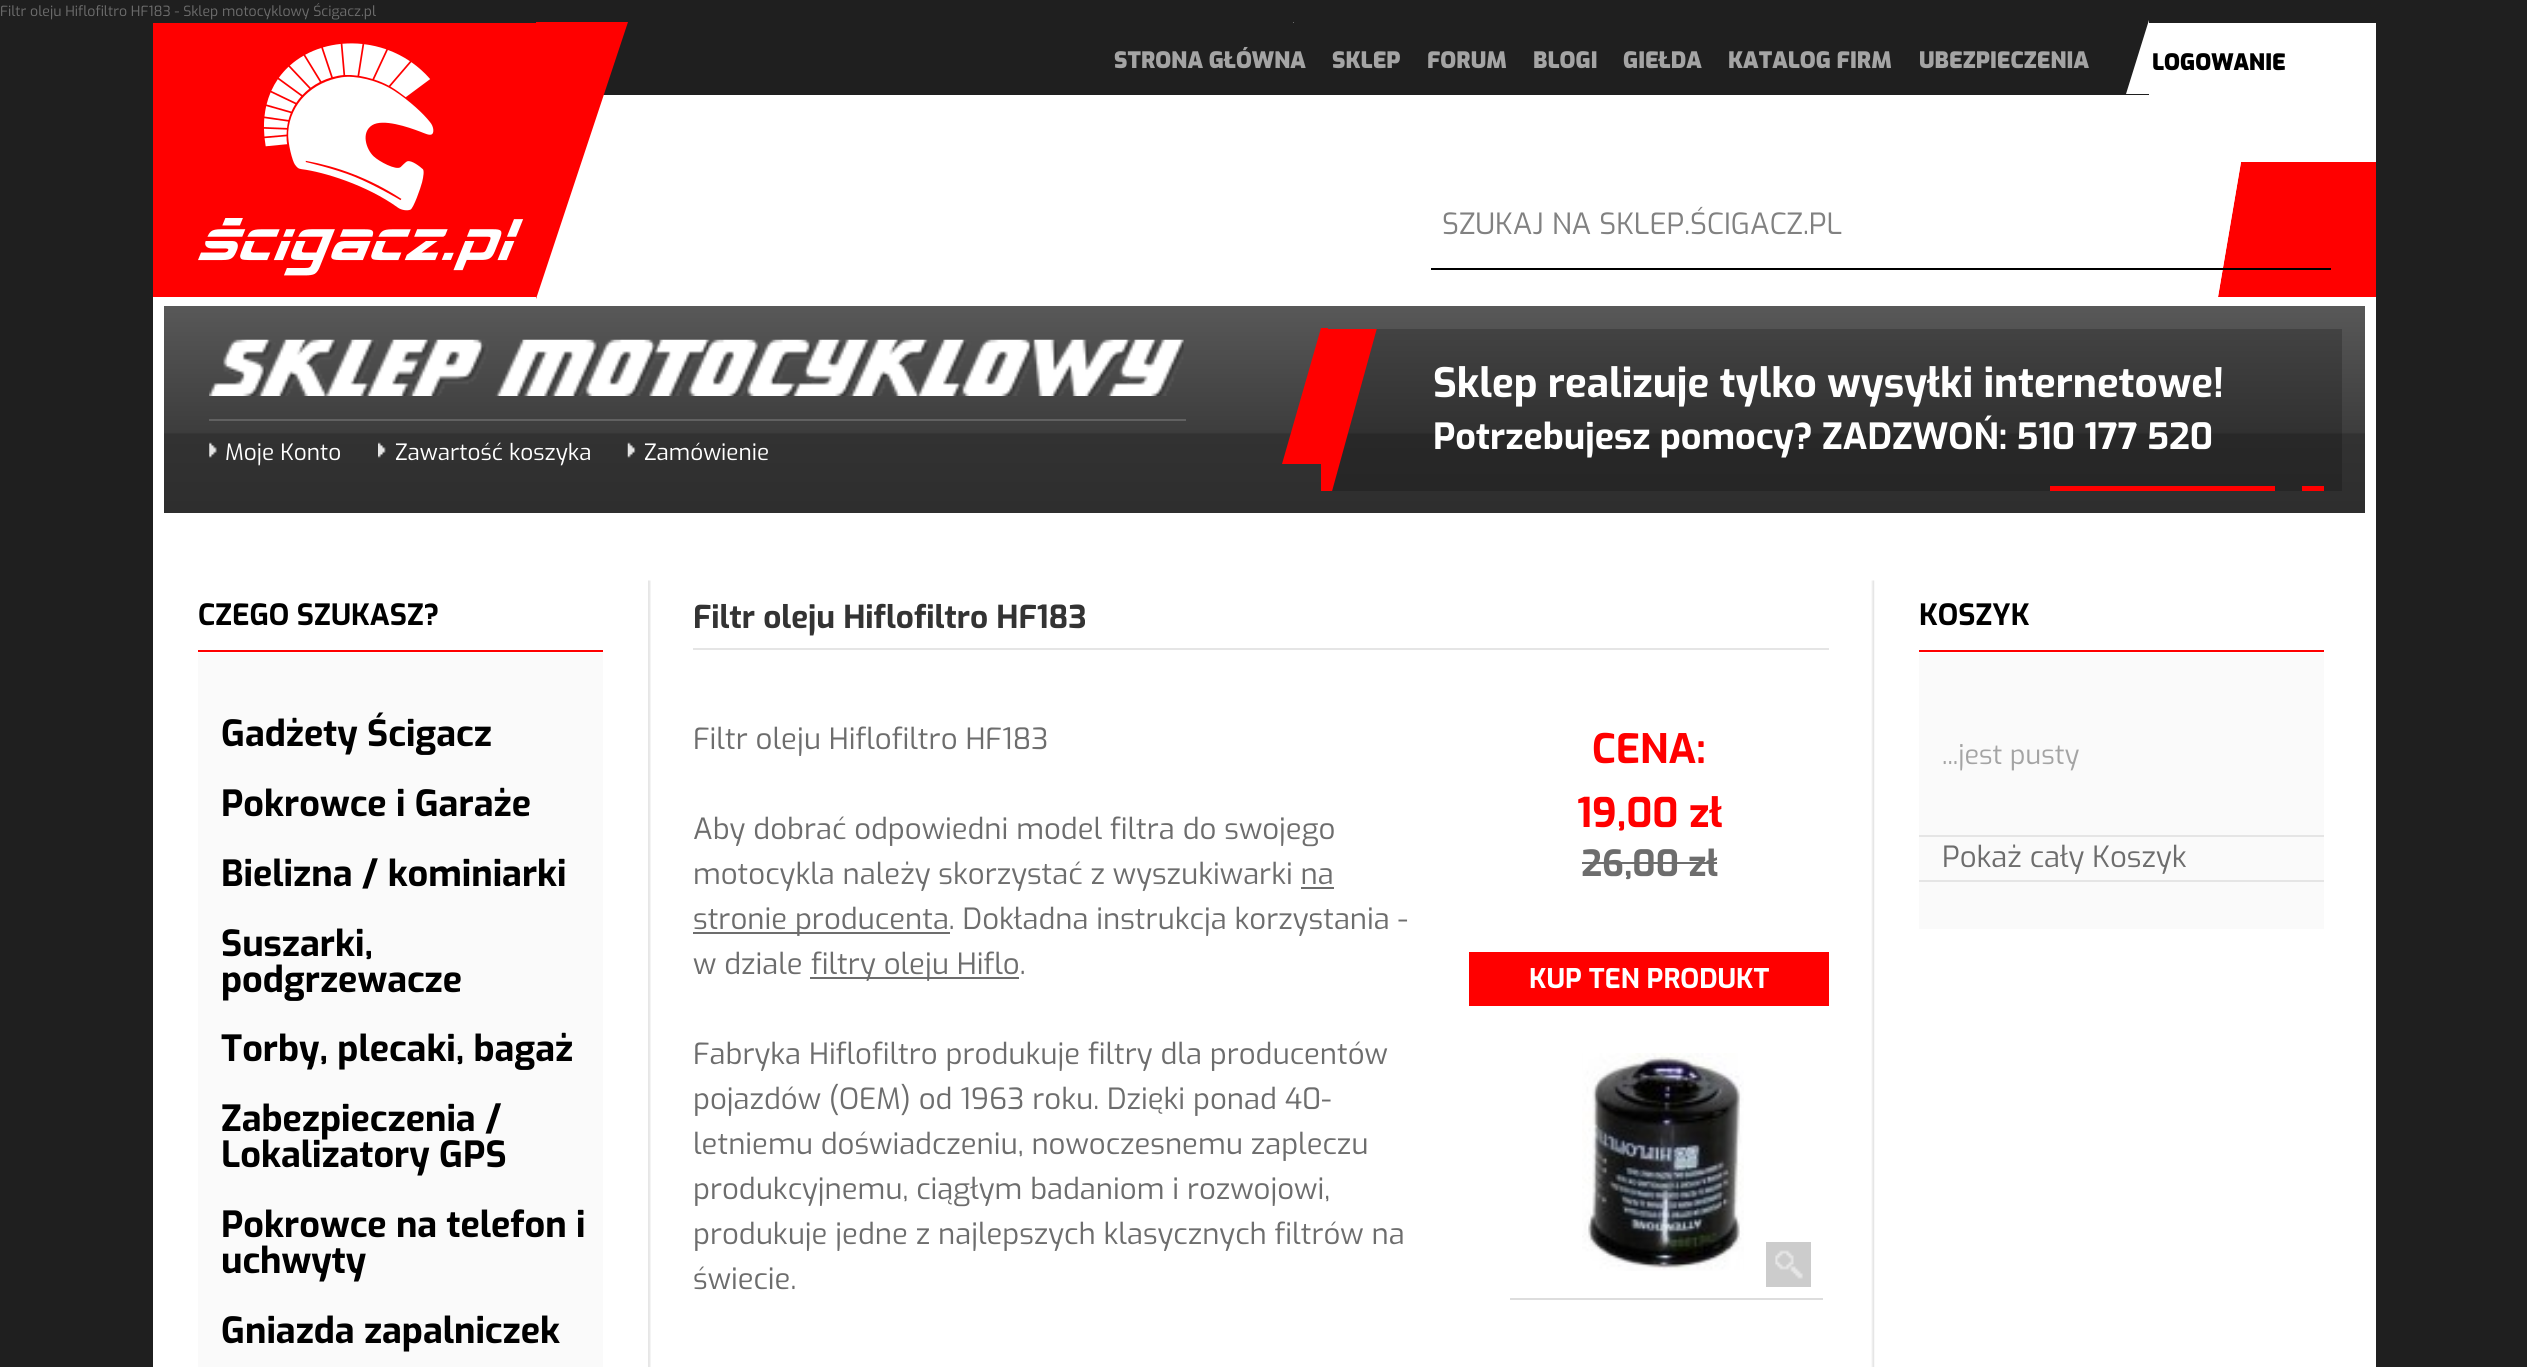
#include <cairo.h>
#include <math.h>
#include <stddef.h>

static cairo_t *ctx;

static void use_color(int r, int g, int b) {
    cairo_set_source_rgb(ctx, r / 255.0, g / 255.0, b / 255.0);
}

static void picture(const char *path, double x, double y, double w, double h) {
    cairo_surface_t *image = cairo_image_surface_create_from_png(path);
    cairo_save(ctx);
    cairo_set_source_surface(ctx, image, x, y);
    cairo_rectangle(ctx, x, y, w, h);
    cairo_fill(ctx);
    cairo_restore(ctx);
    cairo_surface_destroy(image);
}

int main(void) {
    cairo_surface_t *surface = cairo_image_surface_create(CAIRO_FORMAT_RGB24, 2527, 1367);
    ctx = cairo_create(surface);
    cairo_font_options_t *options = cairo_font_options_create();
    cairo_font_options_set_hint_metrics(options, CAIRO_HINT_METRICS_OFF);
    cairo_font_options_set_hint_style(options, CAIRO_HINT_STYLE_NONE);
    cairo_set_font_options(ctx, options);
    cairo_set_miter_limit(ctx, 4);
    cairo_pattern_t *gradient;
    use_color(31, 31, 31);
    cairo_paint(ctx);
    cairo_select_font_face(ctx, "Exo", CAIRO_FONT_SLANT_NORMAL, CAIRO_FONT_WEIGHT_NORMAL);
    cairo_set_font_size(ctx, 14.05);
    use_color(109, 109, 109);
    cairo_move_to(ctx, 0, 16);
    cairo_show_text(ctx, "Filtr oleju Hiflofiltro HF183 - Sklep motocyklowy Ścigacz.pl");
    use_color(255, 255, 255);
    cairo_rectangle(ctx, 153, 95, 2223, 1272);
    cairo_fill(ctx);
    use_color(255, 0, 0);
    cairo_rectangle(ctx, 153, 23, 383, 274);
    cairo_fill(ctx);
    picture("img1.png", 198, 43, 326, 233);
    cairo_new_path(ctx);
    cairo_move_to(ctx, 536, 22);
    cairo_line_to(ctx, 628, 22);
    cairo_line_to(ctx, 536, 299);
    cairo_close_path(ctx);
    cairo_fill(ctx);
    use_color(255, 255, 255);
    cairo_new_path(ctx);
    cairo_move_to(ctx, 1294, 94);
    cairo_line_to(ctx, 1246, 94);
    cairo_line_to(ctx, 1294, 22);
    cairo_close_path(ctx);
    cairo_fill(ctx);
    use_color(31, 31, 31);
    cairo_rectangle(ctx, 1246, 23, 48, 71);
    cairo_fill(ctx);
    cairo_select_font_face(ctx, "Exo Black", CAIRO_FONT_SLANT_NORMAL, CAIRO_FONT_WEIGHT_NORMAL);
    cairo_set_font_size(ctx, 22.5);
    use_color(164, 164, 164);
    cairo_move_to(ctx, 1114, 68);
    cairo_show_text(ctx, "STRONA GŁÓWNA");
    cairo_move_to(ctx, 1332, 68);
    cairo_show_text(ctx, "SKLEP");
    cairo_move_to(ctx, 1427, 68);
    cairo_show_text(ctx, "FORUM");
    cairo_move_to(ctx, 1533, 68);
    cairo_show_text(ctx, "BLOGI");
    cairo_move_to(ctx, 1623, 68);
    cairo_show_text(ctx, "GIEŁDA");
    cairo_move_to(ctx, 1728, 68);
    cairo_show_text(ctx, "KATALOG FIRM");
    cairo_move_to(ctx, 1919, 68);
    cairo_show_text(ctx, "UBEZPIECZENIA");
    use_color(255, 255, 255);
    cairo_rectangle(ctx, 2149, 23, 227, 72);
    cairo_fill(ctx);
    cairo_new_path(ctx);
    cairo_move_to(ctx, 2149, 94);
    cairo_line_to(ctx, 2126, 94);
    cairo_line_to(ctx, 2149, 20);
    cairo_close_path(ctx);
    cairo_fill(ctx);
    use_color(0, 0, 0);
    cairo_move_to(ctx, 2152, 70);
    cairo_show_text(ctx, "LOGOWANIE");
    use_color(255, 0, 0);
    cairo_rectangle(ctx, 2241, 162, 135, 135);
    cairo_fill(ctx);
    cairo_new_path(ctx);
    cairo_move_to(ctx, 2241, 297);
    cairo_line_to(ctx, 2218, 297);
    cairo_line_to(ctx, 2241, 162);
    cairo_close_path(ctx);
    cairo_fill(ctx);
    use_color(255, 255, 255);
    cairo_new_path(ctx);
    cairo_move_to(ctx, 2218, 297);
    cairo_line_to(ctx, 2218, 162);
    cairo_line_to(ctx, 2241, 162);
    cairo_close_path(ctx);
    cairo_fill(ctx);
    use_color(0, 0, 0);
    cairo_rectangle(ctx, 1431, 268, 900, 2);
    cairo_fill(ctx);
    cairo_select_font_face(ctx, "Exo", CAIRO_FONT_SLANT_NORMAL, CAIRO_FONT_WEIGHT_NORMAL);
    cairo_set_font_size(ctx, 29.25);
    use_color(129, 129, 129);
    cairo_move_to(ctx, 1442, 234);
    cairo_show_text(ctx, "SZUKAJ NA SKLEP.ŚCIGACZ.PL");
    gradient = cairo_pattern_create_linear(1265, 306, 1265, 513);
    cairo_pattern_add_color_stop_rgba(gradient, 0, 0.345, 0.345, 0.345, 1);
    cairo_pattern_add_color_stop_rgba(gradient, 0.61, 0.239, 0.239, 0.239, 1);
    cairo_pattern_add_color_stop_rgba(gradient, 0.62, 0.196, 0.196, 0.196, 1);
    cairo_pattern_add_color_stop_rgba(gradient, 1, 0.18, 0.18, 0.18, 1);
    cairo_set_source(ctx, gradient);
    cairo_pattern_destroy(gradient);
    cairo_rectangle(ctx, 164, 306, 2201, 207);
    cairo_fill(ctx);
    gradient = cairo_pattern_create_linear(1265, 306, 1265, 513);
    cairo_pattern_add_color_stop_rgba(gradient, 0, 0.275, 0.275, 0.275, 1);
    cairo_pattern_add_color_stop_rgba(gradient, 0.61, 0.192, 0.192, 0.192, 1);
    cairo_pattern_add_color_stop_rgba(gradient, 0.62, 0.157, 0.157, 0.157, 1);
    cairo_pattern_add_color_stop_rgba(gradient, 1, 0.145, 0.145, 0.145, 1);
    cairo_set_source(ctx, gradient);
    cairo_pattern_destroy(gradient);
    cairo_rectangle(ctx, 1332, 329, 1010, 162);
    cairo_fill(ctx);
    picture("img2.png", 209, 339, 975, 57);
    use_color(97, 97, 97);
    cairo_rectangle(ctx, 209, 419, 977, 2);
    cairo_fill(ctx);
    picture("img3.png", 209, 442, 8, 16);
    cairo_set_font_size(ctx, 22.5);
    use_color(255, 255, 255);
    cairo_move_to(ctx, 225, 460);
    cairo_show_text(ctx, "Moje Konto");
    picture("img4.png", 378, 442, 8, 16);
    cairo_move_to(ctx, 395, 460);
    cairo_show_text(ctx, "Zawartość koszyka");
    picture("img5.png", 627, 442, 9, 16);
    cairo_move_to(ctx, 644, 460);
    cairo_show_text(ctx, "Zamówienie");
    cairo_save(ctx);
    cairo_rectangle(ctx, 1321, 329, 1021, 162);
    cairo_clip(ctx);
    use_color(255, 0, 0);
    cairo_new_path(ctx);
    cairo_move_to(ctx, 1253, 328);
    cairo_line_to(ctx, 1377, 328);
    cairo_line_to(ctx, 1253, 778);
    cairo_close_path(ctx);
    cairo_fill(ctx);
    cairo_restore(ctx);
    use_color(255, 0, 0);
    cairo_new_path(ctx);
    cairo_move_to(ctx, 1328, 464);
    cairo_line_to(ctx, 1282, 464);
    cairo_line_to(ctx, 1321, 328);
    cairo_line_to(ctx, 1328, 328);
    cairo_close_path(ctx);
    cairo_fill(ctx);
    cairo_select_font_face(ctx, "Exo", CAIRO_FONT_SLANT_NORMAL, CAIRO_FONT_WEIGHT_BOLD);
    cairo_set_font_size(ctx, 40.5);
    use_color(255, 255, 255);
    cairo_move_to(ctx, 1433, 397);
    cairo_show_text(ctx, "Sklep realizuje tylko wysyłki internetowe!");
    cairo_set_font_size(ctx, 36);
    cairo_move_to(ctx, 1433, 449);
    cairo_show_text(ctx, "Potrzebujesz pomocy? ZADZWOŃ: 510 177 520");
    use_color(255, 0, 0);
    cairo_rectangle(ctx, 2302, 486, 22, 5);
    cairo_fill(ctx);
    cairo_rectangle(ctx, 2050, 486, 225, 5);
    cairo_fill(ctx);
    picture("img6.png", 648, 580, 1227, 787);
    cairo_rectangle(ctx, 198, 650, 405, 2);
    cairo_fill(ctx);
    cairo_set_font_size(ctx, 29.25);
    use_color(0, 0, 0);
    cairo_move_to(ctx, 198, 625);
    cairo_show_text(ctx, "CZEGO SZUKASZ?");
    use_color(250, 250, 250);
    cairo_rectangle(ctx, 198, 653, 405, 714);
    cairo_fill(ctx);
    cairo_set_font_size(ctx, 36);
    use_color(0, 0, 0);
    cairo_move_to(ctx, 221, 746);
    cairo_show_text(ctx, "Gadżety Ścigacz");
    cairo_move_to(ctx, 221, 816);
    cairo_show_text(ctx, "Pokrowce i Garaże");
    cairo_move_to(ctx, 221, 886);
    cairo_show_text(ctx, "Bielizna / kominiarki");
    cairo_move_to(ctx, 221, 956);
    cairo_show_text(ctx, "Suszarki,");
    cairo_move_to(ctx, 221, 992);
    cairo_show_text(ctx, "podgrzewacze");
    cairo_move_to(ctx, 221, 1061);
    cairo_show_text(ctx, "Torby, plecaki, bagaż");
    cairo_move_to(ctx, 221, 1131);
    cairo_show_text(ctx, "Zabezpieczenia /");
    cairo_move_to(ctx, 221, 1167);
    cairo_show_text(ctx, "Lokalizatory GPS");
    cairo_move_to(ctx, 221, 1237);
    cairo_show_text(ctx, "Pokrowce na telefon i");
    cairo_move_to(ctx, 221, 1273);
    cairo_show_text(ctx, "uchwyty");
    cairo_move_to(ctx, 221, 1343);
    cairo_show_text(ctx, "Gniazda zapalniczek");
    use_color(229, 229, 229);
    cairo_rectangle(ctx, 693, 648, 1136, 2);
    cairo_fill(ctx);
    cairo_set_font_size(ctx, 31.5);
    use_color(51, 51, 51);
    cairo_move_to(ctx, 693, 628);
    cairo_show_text(ctx, "Filtr oleju Hiflofiltro HF183");
    cairo_select_font_face(ctx, "Exo", CAIRO_FONT_SLANT_NORMAL, CAIRO_FONT_WEIGHT_NORMAL);
    cairo_set_font_size(ctx, 29.25);
    use_color(109, 109, 109);
    cairo_move_to(ctx, 693, 749);
    cairo_show_text(ctx, "Filtr oleju Hiflofiltro HF183");
    cairo_move_to(ctx, 693, 839);
    cairo_show_text(ctx, "Aby dobrać odpowiedni model filtra do swojego");
    cairo_move_to(ctx, 693, 884);
    cairo_show_text(ctx, "motocykla należy skorzystać z wyszukiwarki na");
    cairo_rectangle(ctx, 693, 932, 257, 2);
    cairo_fill(ctx);
    cairo_move_to(ctx, 693, 929);
    cairo_show_text(ctx, "stronie producenta. Dokładna instrukcja korzystania -");
    cairo_rectangle(ctx, 1301, 887, 33, 2);
    cairo_fill(ctx);
    cairo_move_to(ctx, 693, 974);
    cairo_show_text(ctx, "w dziale");
    cairo_rectangle(ctx, 810, 977, 209, 2);
    cairo_fill(ctx);
    cairo_move_to(ctx, 811, 974);
    cairo_show_text(ctx, "filtry oleju Hiflo.");
    cairo_move_to(ctx, 693, 1064);
    cairo_show_text(ctx, "Fabryka Hiflofiltro produkuje filtry dla producentów");
    cairo_move_to(ctx, 693, 1109);
    cairo_show_text(ctx, "pojazdów (OEM) od 1963 roku. Dzięki ponad 40-");
    cairo_move_to(ctx, 693, 1154);
    cairo_show_text(ctx, "letniemu doświadczeniu, nowoczesnemu zapleczu");
    cairo_move_to(ctx, 693, 1199);
    cairo_show_text(ctx, "produkcyjnemu, ciągłym badaniom i rozwojowi,");
    cairo_move_to(ctx, 693, 1244);
    cairo_show_text(ctx, "produkuje jedne z najlepszych klasycznych filtrów na");
    cairo_move_to(ctx, 693, 1289);
    cairo_show_text(ctx, "świecie.");
    cairo_select_font_face(ctx, "Exo", CAIRO_FONT_SLANT_NORMAL, CAIRO_FONT_WEIGHT_BOLD);
    cairo_set_font_size(ctx, 40.5);
    use_color(255, 0, 0);
    cairo_move_to(ctx, 1592, 763);
    cairo_show_text(ctx, "CENA:");
    cairo_move_to(ctx, 1577, 827);
    cairo_show_text(ctx, "19,00 zł");
    cairo_set_font_size(ctx, 36);
    use_color(109, 109, 109);
    cairo_move_to(ctx, 1581, 876);
    cairo_show_text(ctx, "26,00 zł");
    cairo_rectangle(ctx, 1582, 862, 135, 2);
    cairo_fill(ctx);
    use_color(255, 0, 0);
    cairo_rectangle(ctx, 1469, 952, 360, 54);
    cairo_fill(ctx);
    cairo_set_font_size(ctx, 27);
    use_color(255, 255, 255);
    cairo_move_to(ctx, 1529, 988);
    cairo_show_text(ctx, "KUP TEN PRODUKT");
    use_color(221, 221, 221);
    cairo_rectangle(ctx, 1510, 1298, 313, 2);
    cairo_fill(ctx);
    picture("img7.png", 1582, 1053, 162, 218);
    use_color(204, 204, 204);
    cairo_rectangle(ctx, 1766, 1242, 45, 45);
    cairo_fill(ctx);
    picture("img8.png", 1775, 1250, 28, 29);
    use_color(255, 0, 0);
    cairo_rectangle(ctx, 1919, 650, 405, 2);
    cairo_fill(ctx);
    cairo_set_font_size(ctx, 29.25);
    use_color(0, 0, 0);
    cairo_move_to(ctx, 1919, 625);
    cairo_show_text(ctx, "KOSZYK");
    use_color(250, 250, 250);
    cairo_rectangle(ctx, 1919, 653, 405, 276);
    cairo_fill(ctx);
    cairo_select_font_face(ctx, "Exo", CAIRO_FONT_SLANT_NORMAL, CAIRO_FONT_WEIGHT_NORMAL);
    cairo_set_font_size(ctx, 27);
    use_color(164, 164, 164);
    cairo_move_to(ctx, 1942, 764);
    cairo_show_text(ctx, "...jest pusty");
    use_color(229, 229, 229);
    cairo_rectangle(ctx, 1919, 835, 405, 2);
    cairo_fill(ctx);
    cairo_rectangle(ctx, 1919, 880, 405, 2);
    cairo_fill(ctx);
    cairo_set_font_size(ctx, 29.25);
    use_color(109, 109, 109);
    cairo_move_to(ctx, 1942, 867);
    cairo_show_text(ctx, "Pokaż cały Koszyk");
    cairo_surface_write_to_png(surface, "result.png");
    cairo_font_options_destroy(options);
    cairo_destroy(ctx);
    cairo_surface_destroy(surface);
    return 0;
}
